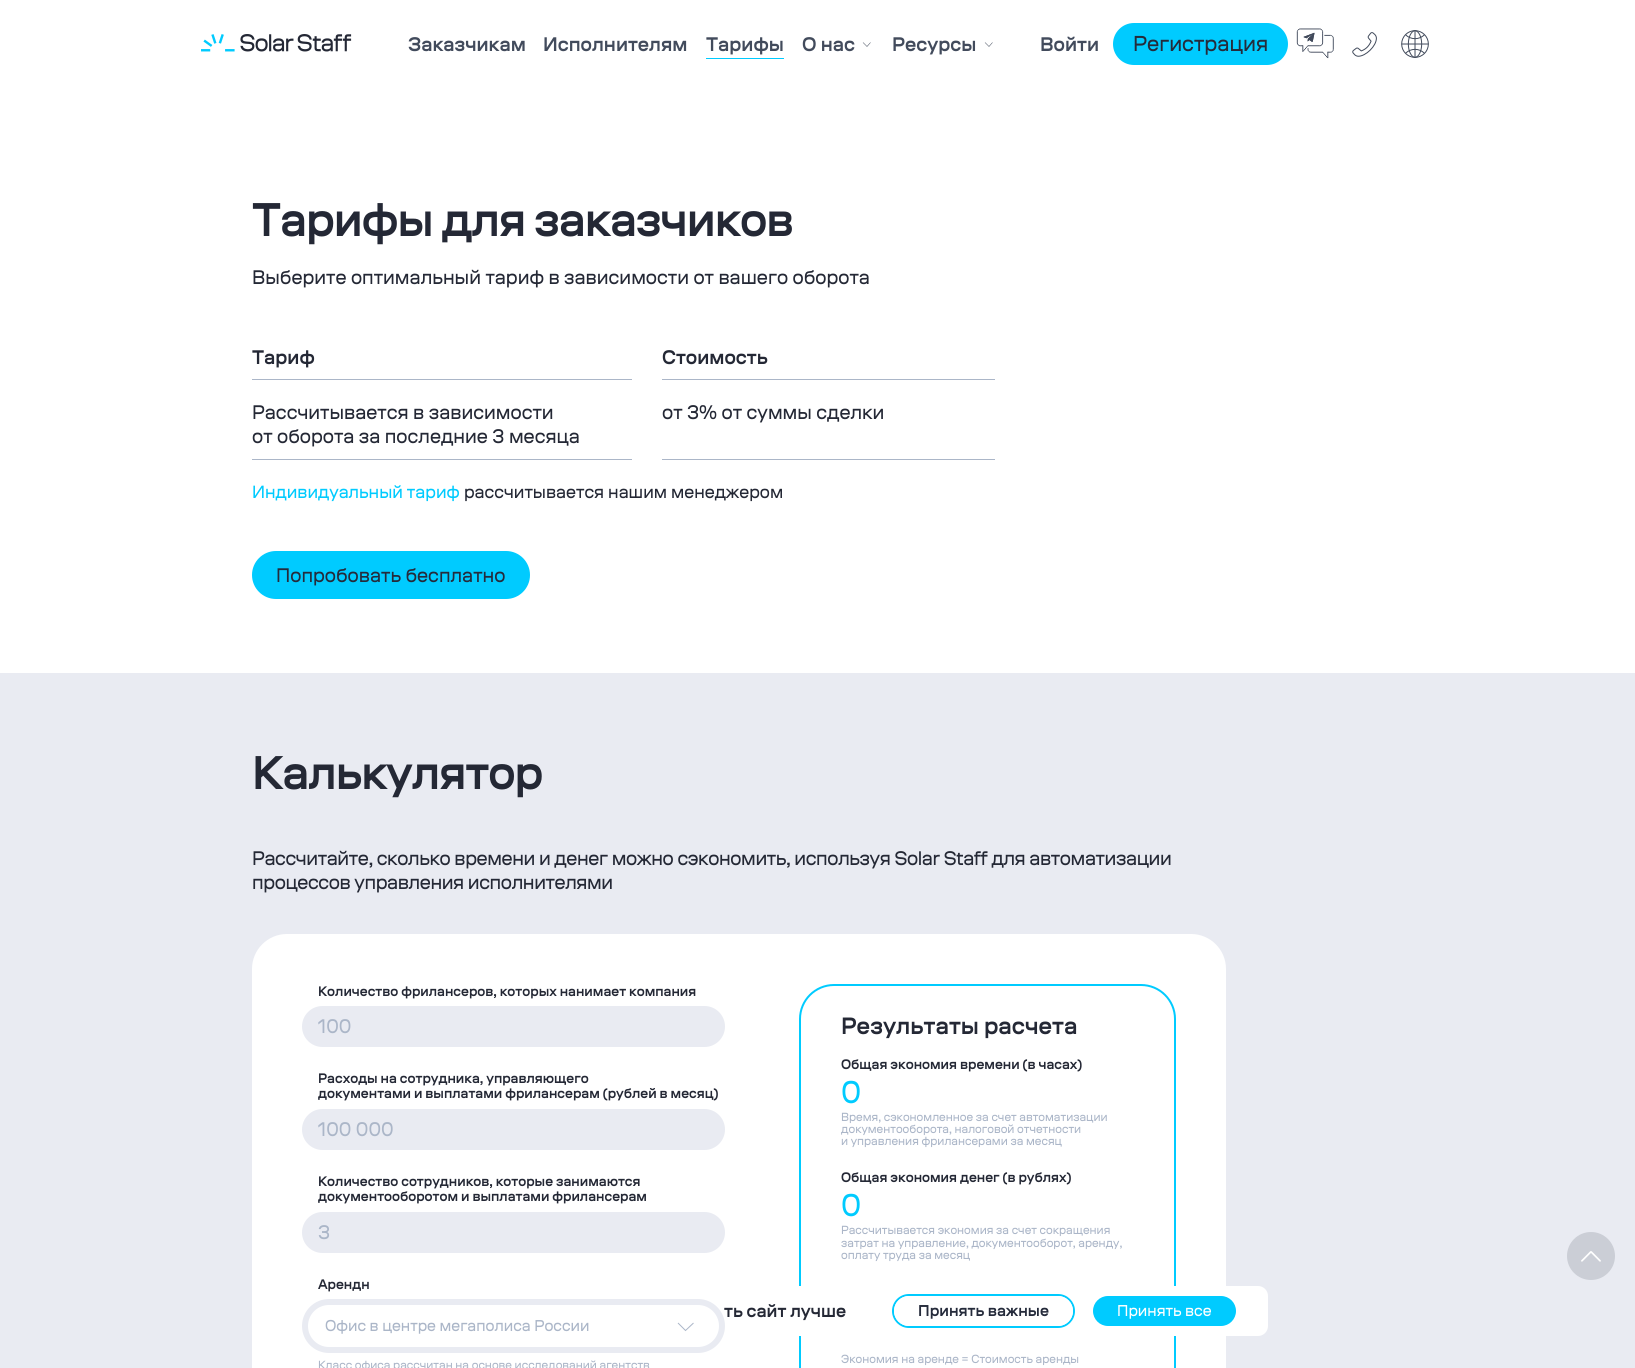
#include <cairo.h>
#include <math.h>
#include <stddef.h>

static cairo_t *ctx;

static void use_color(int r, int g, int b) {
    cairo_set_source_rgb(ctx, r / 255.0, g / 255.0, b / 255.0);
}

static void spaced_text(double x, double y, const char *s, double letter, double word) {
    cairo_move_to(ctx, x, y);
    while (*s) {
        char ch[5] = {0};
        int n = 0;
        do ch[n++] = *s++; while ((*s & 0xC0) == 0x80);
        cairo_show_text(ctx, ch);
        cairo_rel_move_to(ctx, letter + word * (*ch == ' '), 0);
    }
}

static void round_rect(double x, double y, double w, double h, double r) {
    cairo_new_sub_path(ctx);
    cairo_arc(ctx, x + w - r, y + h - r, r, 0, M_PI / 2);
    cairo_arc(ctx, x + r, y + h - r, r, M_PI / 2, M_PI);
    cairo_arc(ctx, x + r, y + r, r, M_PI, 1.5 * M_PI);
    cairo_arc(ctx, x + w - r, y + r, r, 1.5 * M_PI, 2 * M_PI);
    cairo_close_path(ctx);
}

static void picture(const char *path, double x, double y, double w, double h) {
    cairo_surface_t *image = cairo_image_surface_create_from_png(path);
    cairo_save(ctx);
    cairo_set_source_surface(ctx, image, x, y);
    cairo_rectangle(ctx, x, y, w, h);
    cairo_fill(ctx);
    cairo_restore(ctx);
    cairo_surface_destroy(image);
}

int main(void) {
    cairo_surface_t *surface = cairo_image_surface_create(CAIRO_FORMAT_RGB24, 1635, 1368);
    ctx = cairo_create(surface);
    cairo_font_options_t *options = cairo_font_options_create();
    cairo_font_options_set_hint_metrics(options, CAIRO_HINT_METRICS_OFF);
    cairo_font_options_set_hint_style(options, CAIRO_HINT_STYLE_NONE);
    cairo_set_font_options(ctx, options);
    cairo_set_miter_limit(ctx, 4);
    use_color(255, 255, 255);
    cairo_paint(ctx);
    picture("img1.png", 201, 34, 151, 18);
    cairo_select_font_face(ctx, "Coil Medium", CAIRO_FONT_SLANT_NORMAL, CAIRO_FONT_WEIGHT_NORMAL);
    cairo_set_font_size(ctx, 20);
    use_color(66, 75, 92);
    cairo_move_to(ctx, 408, 51);
    cairo_show_text(ctx, "Заказчикам");
    cairo_move_to(ctx, 543, 51);
    cairo_show_text(ctx, "Исполнителям");
    cairo_move_to(ctx, 706, 51);
    cairo_show_text(ctx, "Тарифы");
    use_color(0, 203, 255);
    cairo_rectangle(ctx, 706, 58, 78, 1);
    cairo_fill(ctx);
    use_color(66, 75, 92);
    cairo_move_to(ctx, 802, 51);
    cairo_show_text(ctx, "О нас");
    cairo_new_path(ctx);
    cairo_move_to(ctx, 870.5, 42.5);
    cairo_line_to(ctx, 867, 46.5);
    cairo_line_to(ctx, 863, 42.5);
    cairo_set_line_width(ctx, 0.5);
    cairo_stroke(ctx);
    cairo_move_to(ctx, 892, 51);
    cairo_show_text(ctx, "Ресурсы");
    cairo_new_path(ctx);
    cairo_move_to(ctx, 992.5, 42.5);
    cairo_line_to(ctx, 989, 46.5);
    cairo_line_to(ctx, 985, 42.5);
    cairo_stroke(ctx);
    picture("img2.png", 1401, 30, 28, 28);
    cairo_move_to(ctx, 1040, 51);
    cairo_show_text(ctx, "Войти");
    use_color(0, 203, 255);
    round_rect(1113, 23, 175, 42, 21);
    cairo_fill(ctx);
    cairo_select_font_face(ctx, "Coil", CAIRO_FONT_SLANT_NORMAL, CAIRO_FONT_WEIGHT_NORMAL);
    cairo_set_font_size(ctx, 22);
    use_color(37, 43, 59);
    cairo_move_to(ctx, 1133, 51);
    cairo_show_text(ctx, "Регистрация");
    picture("img3.png", 1296, 28, 38, 31);
    picture("img4.png", 1352, 32, 25, 25);
    cairo_select_font_face(ctx, "Coil Medium", CAIRO_FONT_SLANT_NORMAL, CAIRO_FONT_WEIGHT_NORMAL);
    cairo_set_font_size(ctx, 48);
    use_color(36, 40, 53);
    spaced_text(252, 236, "Тарифы для заказчиков", -1, 0);
    cairo_select_font_face(ctx, "Coil", CAIRO_FONT_SLANT_NORMAL, CAIRO_FONT_WEIGHT_NORMAL);
    cairo_set_font_size(ctx, 20);
    cairo_move_to(ctx, 252, 284);
    cairo_show_text(ctx, "Выберите оптимальный тариф в зависимости от вашего оборота");
    use_color(171, 182, 200);
    cairo_rectangle(ctx, 252, 379, 380, 1);
    cairo_fill(ctx);
    cairo_select_font_face(ctx, "Coil Medium", CAIRO_FONT_SLANT_NORMAL, CAIRO_FONT_WEIGHT_NORMAL);
    use_color(36, 40, 53);
    cairo_move_to(ctx, 252, 364);
    cairo_show_text(ctx, "Тариф");
    use_color(171, 182, 200);
    cairo_rectangle(ctx, 662, 379, 333, 1);
    cairo_fill(ctx);
    use_color(36, 40, 53);
    cairo_move_to(ctx, 662, 364);
    cairo_show_text(ctx, "Стоимость");
    use_color(171, 182, 200);
    cairo_rectangle(ctx, 252, 459, 380, 1);
    cairo_fill(ctx);
    cairo_select_font_face(ctx, "Coil", CAIRO_FONT_SLANT_NORMAL, CAIRO_FONT_WEIGHT_NORMAL);
    use_color(36, 40, 53);
    cairo_move_to(ctx, 252, 419);
    cairo_show_text(ctx, "Рассчитывается в зависимости");
    cairo_move_to(ctx, 252, 443);
    cairo_show_text(ctx, "от оборота за последние 3 месяца");
    use_color(171, 182, 200);
    cairo_rectangle(ctx, 662, 459, 333, 1);
    cairo_fill(ctx);
    use_color(36, 40, 53);
    cairo_move_to(ctx, 662, 419);
    cairo_show_text(ctx, "от 3% от суммы сделки");
    cairo_set_font_size(ctx, 18);
    use_color(0, 203, 255);
    cairo_move_to(ctx, 252, 498);
    cairo_show_text(ctx, "Индивидуальный тариф");
    use_color(36, 40, 53);
    cairo_move_to(ctx, 464, 498);
    cairo_show_text(ctx, "рассчитывается нашим менеджером");
    use_color(0, 203, 255);
    round_rect(252, 551, 278, 48, 24);
    cairo_fill(ctx);
    cairo_set_font_size(ctx, 20);
    use_color(37, 43, 59);
    cairo_move_to(ctx, 276, 582);
    cairo_show_text(ctx, "Попробовать бесплатно");
    use_color(233, 235, 242);
    cairo_rectangle(ctx, 0, 673, 1635, 695);
    cairo_fill(ctx);
    cairo_select_font_face(ctx, "Coil Medium", CAIRO_FONT_SLANT_NORMAL, CAIRO_FONT_WEIGHT_NORMAL);
    cairo_set_font_size(ctx, 48);
    use_color(36, 40, 53);
    spaced_text(252, 789, "Калькулятор", -1, 0);
    cairo_select_font_face(ctx, "Coil", CAIRO_FONT_SLANT_NORMAL, CAIRO_FONT_WEIGHT_NORMAL);
    cairo_set_font_size(ctx, 20);
    spaced_text(252, 865, "Рассчитайте, сколько времени и денег можно сэкономить, используя Solar Staff для автоматизации", -0.4, 0);
    spaced_text(252, 889, "процессов управления исполнителями", -0.4, 0);
    use_color(255, 255, 255);
    round_rect(252, 934, 974, 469, 35);
    cairo_fill(ctx);
    cairo_select_font_face(ctx, "Coil Medium", CAIRO_FONT_SLANT_NORMAL, CAIRO_FONT_WEIGHT_NORMAL);
    cairo_set_font_size(ctx, 14);
    use_color(36, 40, 53);
    cairo_move_to(ctx, 318, 996);
    cairo_show_text(ctx, "Количество фрилансеров, которых нанимает компания");
    use_color(233, 235, 242);
    round_rect(302, 1006, 423, 41, 20.5);
    cairo_fill(ctx);
    cairo_select_font_face(ctx, "Coil", CAIRO_FONT_SLANT_NORMAL, CAIRO_FONT_WEIGHT_NORMAL);
    cairo_set_font_size(ctx, 20);
    use_color(171, 182, 200);
    cairo_move_to(ctx, 318, 1033);
    cairo_show_text(ctx, "100");
    cairo_select_font_face(ctx, "Coil Medium", CAIRO_FONT_SLANT_NORMAL, CAIRO_FONT_WEIGHT_NORMAL);
    cairo_set_font_size(ctx, 14);
    use_color(36, 40, 53);
    cairo_move_to(ctx, 318, 1083);
    cairo_show_text(ctx, "Расходы на сотрудника, управляющего");
    cairo_move_to(ctx, 318, 1098);
    cairo_show_text(ctx, "документами и выплатами фрилансерам (рублей в месяц)");
    use_color(233, 235, 242);
    round_rect(302, 1109, 423, 41, 20.5);
    cairo_fill(ctx);
    cairo_select_font_face(ctx, "Coil", CAIRO_FONT_SLANT_NORMAL, CAIRO_FONT_WEIGHT_NORMAL);
    cairo_set_font_size(ctx, 20);
    use_color(171, 182, 200);
    cairo_move_to(ctx, 318, 1136);
    cairo_show_text(ctx, "100 000");
    cairo_select_font_face(ctx, "Coil Medium", CAIRO_FONT_SLANT_NORMAL, CAIRO_FONT_WEIGHT_NORMAL);
    cairo_set_font_size(ctx, 14);
    use_color(36, 40, 53);
    cairo_move_to(ctx, 318, 1186);
    cairo_show_text(ctx, "Количество сотрудников, которые занимаются");
    cairo_move_to(ctx, 318, 1201);
    cairo_show_text(ctx, "документооборотом и выплатами фрилансерам");
    use_color(233, 235, 242);
    round_rect(302, 1212, 423, 41, 20.5);
    cairo_fill(ctx);
    cairo_select_font_face(ctx, "Coil", CAIRO_FONT_SLANT_NORMAL, CAIRO_FONT_WEIGHT_NORMAL);
    cairo_set_font_size(ctx, 20);
    use_color(171, 182, 200);
    cairo_move_to(ctx, 318, 1239);
    cairo_show_text(ctx, "3");
    cairo_select_font_face(ctx, "Coil Medium", CAIRO_FONT_SLANT_NORMAL, CAIRO_FONT_WEIGHT_NORMAL);
    cairo_set_font_size(ctx, 14);
    use_color(36, 40, 53);
    cairo_move_to(ctx, 318, 1289);
    cairo_show_text(ctx, "Арендн");
    round_rect(800, 985, 375, 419, 34);
    use_color(0, 203, 255);
    cairo_set_line_width(ctx, 2);
    cairo_stroke(ctx);
    use_color(255, 255, 255);
    round_rect(367, 1286, 901, 50, 10);
    cairo_fill(ctx);
    cairo_set_font_size(ctx, 18);
    use_color(36, 40, 53);
    cairo_move_to(ctx, 724, 1317);
    cairo_show_text(ctx, "ть сайт лучше");
    use_color(233, 235, 242);
    round_rect(302, 1299, 423, 54, 27);
    cairo_fill(ctx);
    use_color(255, 255, 255);
    round_rect(308, 1305, 411, 42, 21);
    cairo_fill(ctx);
    cairo_select_font_face(ctx, "Coil", CAIRO_FONT_SLANT_NORMAL, CAIRO_FONT_WEIGHT_NORMAL);
    cairo_set_font_size(ctx, 16);
    use_color(171, 182, 200);
    cairo_move_to(ctx, 325, 1331);
    cairo_show_text(ctx, "Офис в центре мегаполиса России");
    cairo_new_path(ctx);
    cairo_move_to(ctx, 693.5, 1323);
    cairo_line_to(ctx, 685.5, 1330.5);
    cairo_line_to(ctx, 678, 1323);
    cairo_set_line_width(ctx, 1);
    cairo_stroke(ctx);
    cairo_set_font_size(ctx, 12);
    cairo_move_to(ctx, 318, 1369);
    cairo_show_text(ctx, "Класс офиса рассчитан на основе исследований агентств");
    cairo_select_font_face(ctx, "Coil Medium", CAIRO_FONT_SLANT_NORMAL, CAIRO_FONT_WEIGHT_NORMAL);
    cairo_set_font_size(ctx, 24);
    use_color(36, 40, 53);
    cairo_move_to(ctx, 841, 1034);
    cairo_show_text(ctx, "Результаты расчета");
    cairo_set_font_size(ctx, 14);
    cairo_move_to(ctx, 841, 1069);
    cairo_show_text(ctx, "Общая экономия времени (в часах)");
    cairo_select_font_face(ctx, "Coil", CAIRO_FONT_SLANT_NORMAL, CAIRO_FONT_WEIGHT_NORMAL);
    cairo_set_font_size(ctx, 32);
    use_color(0, 203, 255);
    cairo_move_to(ctx, 841, 1103);
    cairo_show_text(ctx, "0");
    cairo_set_font_size(ctx, 12);
    use_color(171, 182, 200);
    cairo_move_to(ctx, 841, 1121);
    cairo_show_text(ctx, "Время, сэкономленное за счет автоматизации");
    cairo_move_to(ctx, 841, 1133);
    cairo_show_text(ctx, "документооборота, налоговой отчетности");
    cairo_move_to(ctx, 841, 1145);
    cairo_show_text(ctx, "и управления фрилансерами за месяц");
    cairo_select_font_face(ctx, "Coil Medium", CAIRO_FONT_SLANT_NORMAL, CAIRO_FONT_WEIGHT_NORMAL);
    cairo_set_font_size(ctx, 14);
    use_color(36, 40, 53);
    cairo_move_to(ctx, 841, 1182);
    cairo_show_text(ctx, "Общая экономия денег (в рублях)");
    cairo_select_font_face(ctx, "Coil", CAIRO_FONT_SLANT_NORMAL, CAIRO_FONT_WEIGHT_NORMAL);
    cairo_set_font_size(ctx, 32);
    use_color(0, 203, 255);
    cairo_move_to(ctx, 841, 1216);
    cairo_show_text(ctx, "0");
    cairo_set_font_size(ctx, 12);
    use_color(171, 182, 200);
    cairo_move_to(ctx, 841, 1234);
    cairo_show_text(ctx, "Рассчитывается экономия за счет сокращения");
    cairo_move_to(ctx, 841, 1247);
    cairo_show_text(ctx, "затрат на управление, документооборот, аренду,");
    cairo_move_to(ctx, 841, 1259);
    cairo_show_text(ctx, "оплату труда за месяц");
    cairo_move_to(ctx, 841, 1363);
    cairo_show_text(ctx, "Экономия на аренде = Стоимость аренды");
    use_color(203, 206, 214);
    cairo_new_path(ctx);
    cairo_arc(ctx, 1591, 1256, 24, 0, 2 * M_PI);
    cairo_fill(ctx);
    picture("img5.png", 1581, 1251, 20, 11);
    round_rect(893, 1295, 181, 32, 16);
    use_color(0, 203, 255);
    cairo_set_line_width(ctx, 2);
    cairo_stroke(ctx);
    use_color(255, 255, 255);
    round_rect(894, 1296, 179, 30, 15);
    cairo_fill(ctx);
    cairo_select_font_face(ctx, "Coil Medium", CAIRO_FONT_SLANT_NORMAL, CAIRO_FONT_WEIGHT_NORMAL);
    cairo_set_font_size(ctx, 16);
    use_color(37, 43, 59);
    cairo_move_to(ctx, 918, 1316);
    cairo_show_text(ctx, "Принять важные");
    use_color(0, 203, 255);
    round_rect(1093, 1296, 143, 30, 15);
    cairo_fill(ctx);
    cairo_select_font_face(ctx, "Coil", CAIRO_FONT_SLANT_NORMAL, CAIRO_FONT_WEIGHT_NORMAL);
    use_color(255, 255, 255);
    cairo_move_to(ctx, 1117, 1316);
    cairo_show_text(ctx, "Принять все");
    cairo_surface_write_to_png(surface, "result.png");
    cairo_font_options_destroy(options);
    cairo_destroy(ctx);
    cairo_surface_destroy(surface);
    return 0;
}
